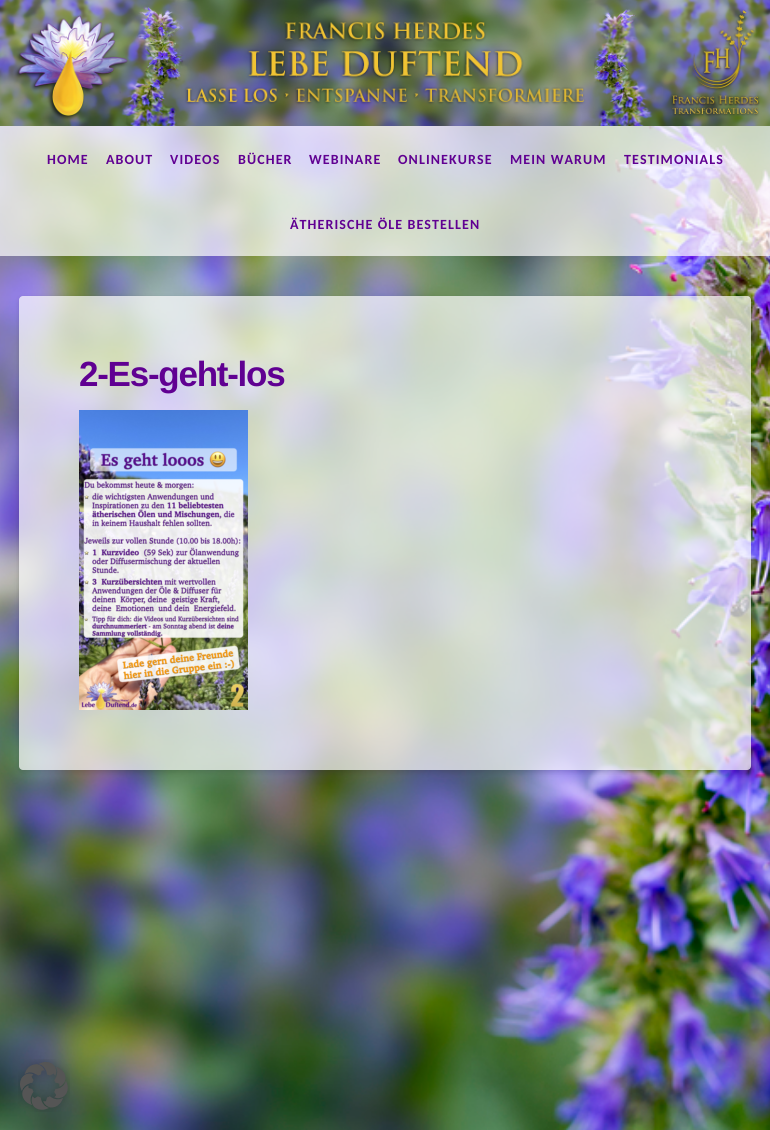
#include <cairo.h>
#include <math.h>
#include <stddef.h>

static cairo_t *ctx;

static void use_color(int r, int g, int b) {
    cairo_set_source_rgb(ctx, r / 255.0, g / 255.0, b / 255.0);
}

static void spaced_text(double x, double y, const char *s, double letter, double word) {
    cairo_move_to(ctx, x, y);
    while (*s) {
        char ch[5] = {0};
        int n = 0;
        do ch[n++] = *s++; while ((*s & 0xC0) == 0x80);
        cairo_show_text(ctx, ch);
        cairo_rel_move_to(ctx, letter + word * (*ch == ' '), 0);
    }
}

static void round_rect(double x, double y, double w, double h, double r) {
    cairo_new_sub_path(ctx);
    cairo_arc(ctx, x + w - r, y + h - r, r, 0, M_PI / 2);
    cairo_arc(ctx, x + r, y + h - r, r, M_PI / 2, M_PI);
    cairo_arc(ctx, x + r, y + r, r, M_PI, 1.5 * M_PI);
    cairo_arc(ctx, x + w - r, y + r, r, 1.5 * M_PI, 2 * M_PI);
    cairo_close_path(ctx);
}

static void shadow(double x, double y, double w, double h, double r, double blur, double alpha) {
    cairo_push_group_with_content(ctx, CAIRO_CONTENT_ALPHA);
    cairo_set_operator(ctx, CAIRO_OPERATOR_SOURCE);
    for (int i = 15; i >= -15 && fmin(w, h) + blur * i / 3 > 0; i -= 2) {
        double e = blur * i / 6;
        cairo_set_source_rgba(ctx, 0, 0, 0, alpha * erfc((i - 1) / 8.5) / 2);
        round_rect(x - e, y - e, w + 2 * e, h + 2 * e, fmax(0, fmin(r + e + blur * .6, fmin(w, h) / 2 + e)));
        cairo_fill(ctx);
    }
    cairo_pattern_t *soft = cairo_pop_group(ctx);
    cairo_mask(ctx, soft);
    cairo_pattern_destroy(soft);
}

static void picture(const char *path, double x, double y, double w, double h) {
    cairo_surface_t *image = cairo_image_surface_create_from_png(path);
    cairo_save(ctx);
    cairo_set_source_surface(ctx, image, x, y);
    cairo_rectangle(ctx, x, y, w, h);
    cairo_fill(ctx);
    cairo_restore(ctx);
    cairo_surface_destroy(image);
}

int main(void) {
    cairo_surface_t *surface = cairo_image_surface_create(CAIRO_FORMAT_RGB24, 770, 1130);
    ctx = cairo_create(surface);
    cairo_font_options_t *options = cairo_font_options_create();
    cairo_font_options_set_hint_metrics(options, CAIRO_HINT_METRICS_OFF);
    cairo_font_options_set_hint_style(options, CAIRO_HINT_STYLE_NONE);
    cairo_set_font_options(ctx, options);
    cairo_set_miter_limit(ctx, 4);
    use_color(255, 255, 255);
    cairo_paint(ctx);
    picture("img1.png", 0, 126, 770, 1004);
    picture("img2.png", 0, 0, 770, 126);
    cairo_set_source_rgba(ctx, 1, 1, 1, 0.7);
    cairo_rectangle(ctx, 0, 126, 770, 130);
    cairo_fill(ctx);
    cairo_select_font_face(ctx, "Carlito", CAIRO_FONT_SLANT_NORMAL, CAIRO_FONT_WEIGHT_BOLD);
    cairo_set_font_size(ctx, 14);
    use_color(96, 0, 146);
    spaced_text(47, 164, "HOME", 1.1, 0);
    spaced_text(106, 164, "ABOUT", 1.1, 0);
    spaced_text(170, 164, "VIDEOS", 1.1, 0);
    spaced_text(238, 164, "BÜCHER", 1.1, 0);
    spaced_text(309, 164, "WEBINARE", 1.1, 0);
    spaced_text(398, 164, "ONLINEKURSE", 1.1, 0);
    spaced_text(510, 164, "MEIN WARUM", 1.1, 0);
    spaced_text(624, 164, "TESTIMONIALS", 1.1, 0);
    spaced_text(290, 229, "ÄTHERISCHE ÖLE BESTELLEN", 1.1, 0);
    cairo_save(ctx);
    cairo_set_fill_rule(ctx, CAIRO_FILL_RULE_EVEN_ODD);
    cairo_new_path(ctx);
    cairo_move_to(ctx, 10, 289);
    cairo_line_to(ctx, 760, 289);
    cairo_line_to(ctx, 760, 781);
    cairo_line_to(ctx, 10, 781);
    cairo_close_path(ctx);
    cairo_move_to(ctx, 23, 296);
    cairo_line_to(ctx, 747, 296);
    cairo_curve_to(ctx, 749, 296, 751, 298, 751, 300);
    cairo_line_to(ctx, 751, 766);
    cairo_curve_to(ctx, 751, 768, 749, 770, 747, 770);
    cairo_line_to(ctx, 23, 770);
    cairo_curve_to(ctx, 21, 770, 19, 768, 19, 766);
    cairo_line_to(ctx, 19, 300);
    cairo_curve_to(ctx, 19, 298, 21, 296, 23, 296);
    cairo_close_path(ctx);
    cairo_clip(ctx);
    use_color(0, 0, 0);
    shadow(19, 298, 732, 474, 4, 2.5, 0.13);
    cairo_restore(ctx);
    cairo_set_source_rgba(ctx, 1, 1, 1, 0.7);
    round_rect(19, 296, 732, 474, 4);
    cairo_fill(ctx);
    cairo_select_font_face(ctx, "Liberation Sans", CAIRO_FONT_SLANT_NORMAL, CAIRO_FONT_WEIGHT_BOLD);
    cairo_set_font_size(ctx, 35);
    use_color(96, 0, 146);
    spaced_text(79, 386, "2-Es-geht-los", -1.25, 0);
    picture("img3.png", 79, 410, 169, 300);
    picture("img4.png", 18, 1059, 52, 53);
    cairo_surface_write_to_png(surface, "result.png");
    cairo_font_options_destroy(options);
    cairo_destroy(ctx);
    cairo_surface_destroy(surface);
    return 0;
}
